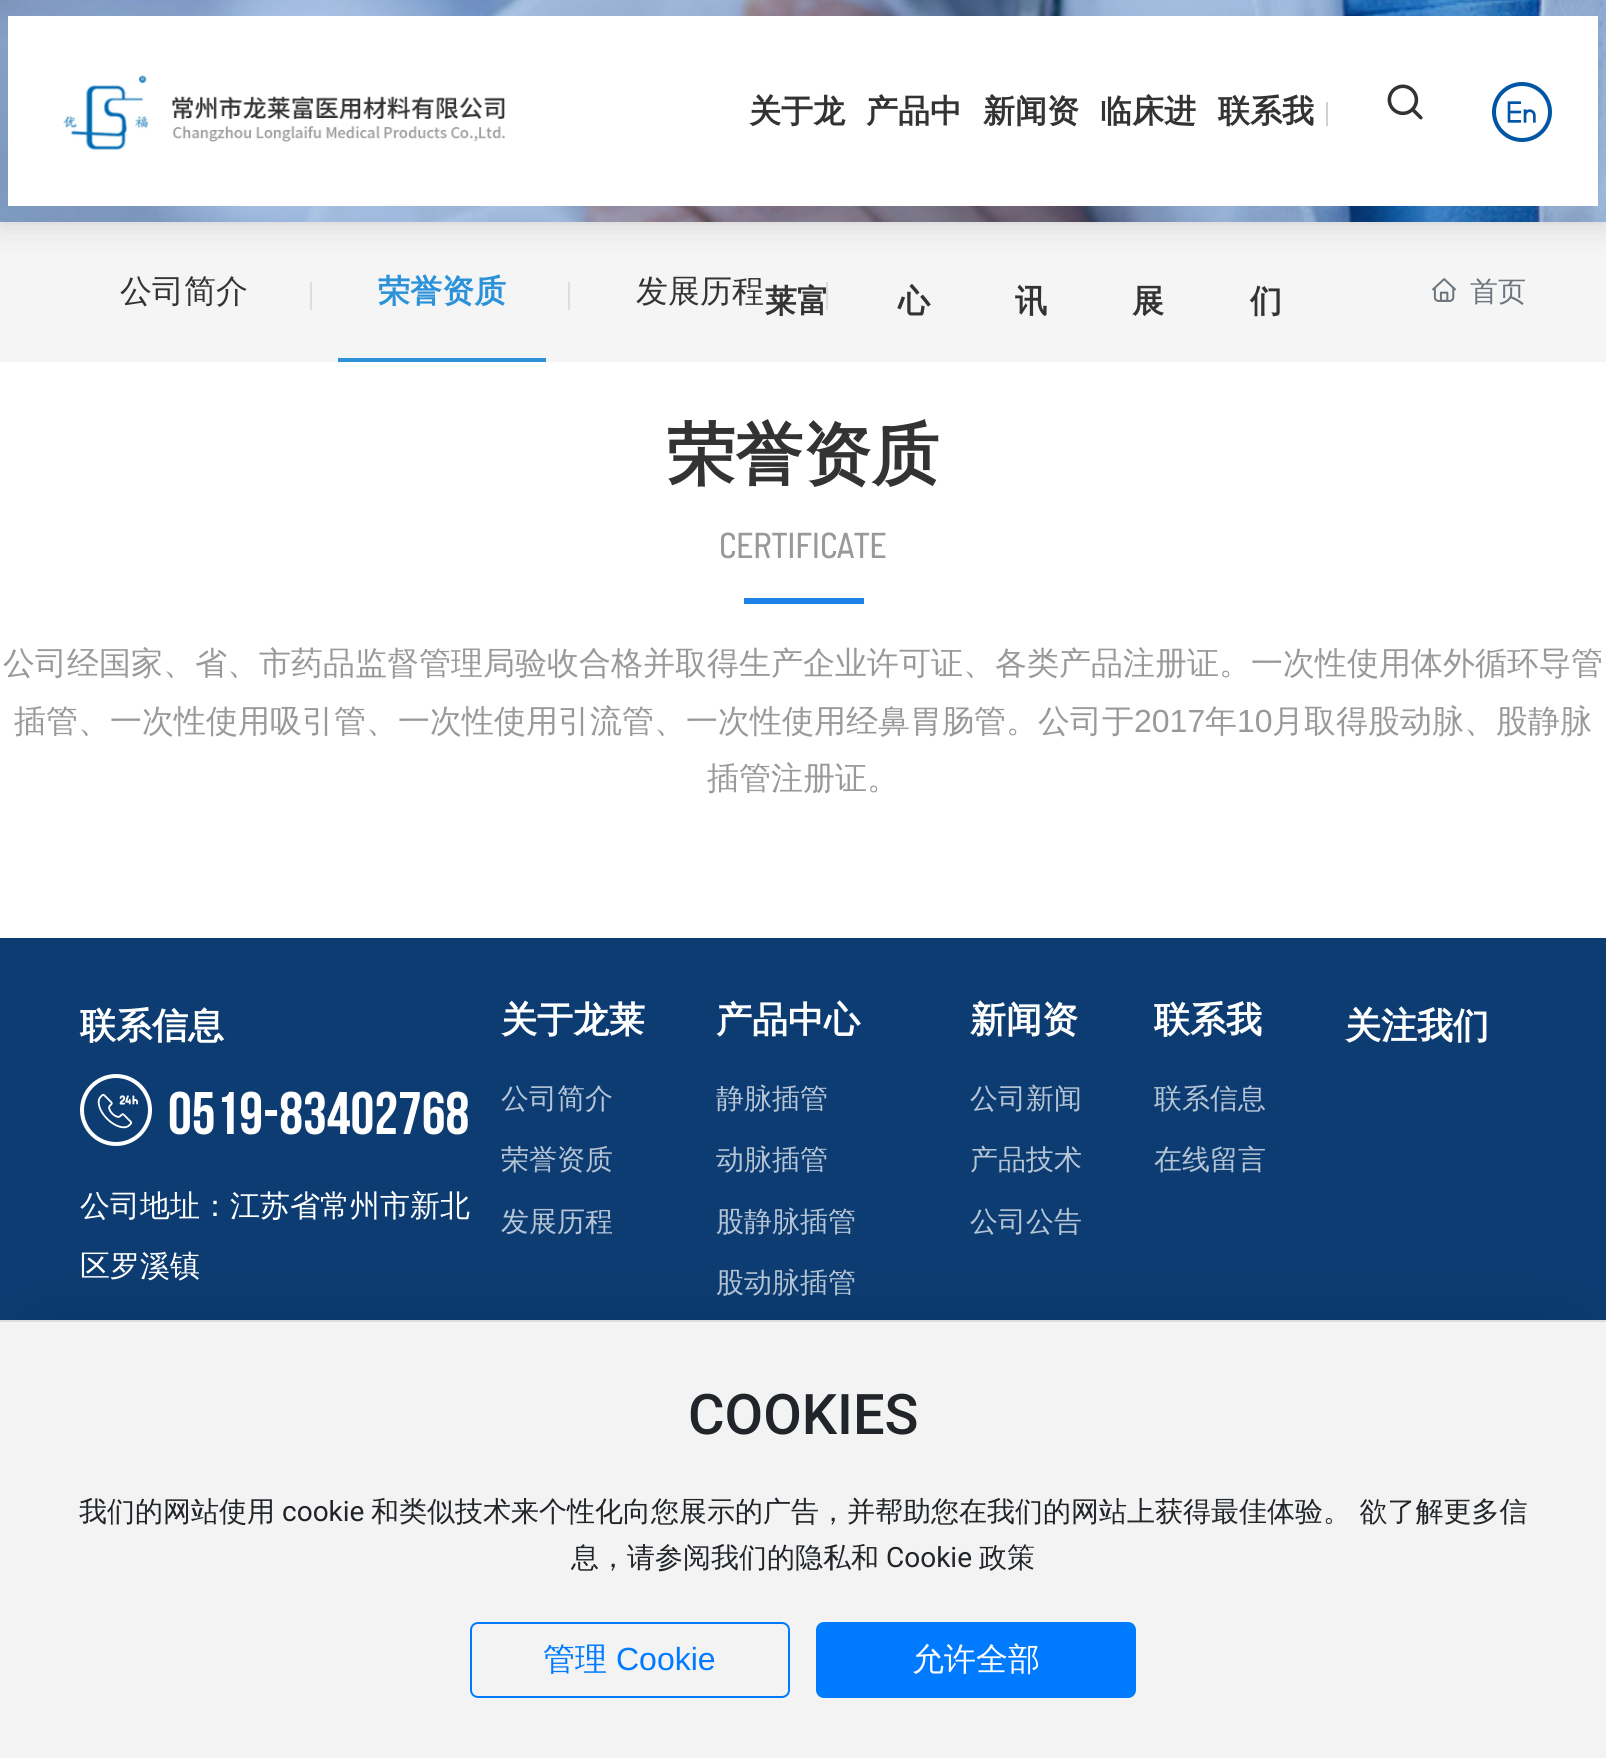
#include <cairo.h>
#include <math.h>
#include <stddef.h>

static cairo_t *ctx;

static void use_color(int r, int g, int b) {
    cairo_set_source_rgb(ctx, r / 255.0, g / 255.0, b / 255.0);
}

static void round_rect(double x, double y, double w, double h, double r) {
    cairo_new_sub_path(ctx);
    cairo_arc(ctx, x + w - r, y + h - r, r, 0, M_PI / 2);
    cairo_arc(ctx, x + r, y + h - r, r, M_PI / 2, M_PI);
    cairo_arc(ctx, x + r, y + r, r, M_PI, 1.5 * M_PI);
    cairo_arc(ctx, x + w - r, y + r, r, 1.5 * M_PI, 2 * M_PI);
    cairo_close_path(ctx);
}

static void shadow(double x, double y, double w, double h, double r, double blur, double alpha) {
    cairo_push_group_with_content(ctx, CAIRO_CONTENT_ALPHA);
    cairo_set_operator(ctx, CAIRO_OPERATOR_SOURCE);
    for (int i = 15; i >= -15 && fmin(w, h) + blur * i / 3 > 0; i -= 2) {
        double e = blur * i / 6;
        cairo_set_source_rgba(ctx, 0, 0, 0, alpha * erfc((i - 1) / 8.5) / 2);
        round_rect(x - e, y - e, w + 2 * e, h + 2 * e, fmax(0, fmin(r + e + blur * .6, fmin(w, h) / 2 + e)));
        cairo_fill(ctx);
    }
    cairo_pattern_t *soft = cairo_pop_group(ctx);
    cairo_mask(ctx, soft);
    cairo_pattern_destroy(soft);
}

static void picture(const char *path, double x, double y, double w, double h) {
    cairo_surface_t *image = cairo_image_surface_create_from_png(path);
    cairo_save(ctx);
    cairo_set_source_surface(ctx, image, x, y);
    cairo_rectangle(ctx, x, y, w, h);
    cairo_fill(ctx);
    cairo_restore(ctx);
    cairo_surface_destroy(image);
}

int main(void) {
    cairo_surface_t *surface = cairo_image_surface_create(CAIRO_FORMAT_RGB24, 1606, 1758);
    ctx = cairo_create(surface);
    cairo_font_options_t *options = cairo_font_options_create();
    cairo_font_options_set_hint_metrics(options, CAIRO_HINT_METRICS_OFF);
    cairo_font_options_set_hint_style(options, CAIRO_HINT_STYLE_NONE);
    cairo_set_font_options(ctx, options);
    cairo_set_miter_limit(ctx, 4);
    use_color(255, 255, 255);
    cairo_paint(ctx);
    picture("img4.png", 0, 0, 1606, 222);
    use_color(245, 245, 245);
    cairo_rectangle(ctx, 0, 222, 1606, 140);
    cairo_fill(ctx);
    cairo_save(ctx);
    cairo_rectangle(ctx, 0, 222, 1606, 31);
    cairo_clip(ctx);
    use_color(203, 203, 203);
    shadow(0, 0, 1606, 222, 0, 15, 1);
    cairo_restore(ctx);
    use_color(255, 255, 255);
    cairo_rectangle(ctx, 8, 16, 1590, 190);
    cairo_fill(ctx);
    picture("img1.png", 63, 75, 442, 76);
    cairo_select_font_face(ctx, "WenQuanYi Zen Hei", CAIRO_FONT_SLANT_NORMAL, CAIRO_FONT_WEIGHT_BOLD);
    cairo_set_font_size(ctx, 32);
    use_color(51, 51, 51);
    cairo_move_to(ctx, 749, 122);
    cairo_show_text(ctx, "关于龙");
    cairo_move_to(ctx, 765, 312);
    cairo_show_text(ctx, "莱富");
    cairo_move_to(ctx, 866, 122);
    cairo_show_text(ctx, "产品中");
    cairo_move_to(ctx, 898, 312);
    cairo_show_text(ctx, "心");
    cairo_move_to(ctx, 983, 122);
    cairo_show_text(ctx, "新闻资");
    cairo_move_to(ctx, 1015, 312);
    cairo_show_text(ctx, "讯");
    cairo_move_to(ctx, 1100, 122);
    cairo_show_text(ctx, "临床进");
    cairo_move_to(ctx, 1132, 312);
    cairo_show_text(ctx, "展");
    cairo_move_to(ctx, 1218, 122);
    cairo_show_text(ctx, "联系我");
    cairo_move_to(ctx, 1250, 312);
    cairo_show_text(ctx, "们");
    use_color(209, 209, 209);
    cairo_rectangle(ctx, 1326, 102, 2, 24);
    cairo_fill(ctx);
    picture("img2.png", 1387, 84, 36, 36);
    cairo_arc(ctx, 1522, 112, 28, 0, 2 * M_PI);
    use_color(0, 85, 164);
    cairo_set_line_width(ctx, 4);
    cairo_stroke(ctx);
    picture("img3.png", 1507, 101, 29, 22);
    cairo_select_font_face(ctx, "WenQuanYi Zen Hei Medium", CAIRO_FONT_SLANT_NORMAL, CAIRO_FONT_WEIGHT_NORMAL);
    use_color(51, 51, 51);
    cairo_move_to(ctx, 120, 302);
    cairo_show_text(ctx, "公司简介");
    use_color(221, 221, 221);
    cairo_rectangle(ctx, 310, 282, 2, 28);
    cairo_fill(ctx);
    cairo_select_font_face(ctx, "WenQuanYi Zen Hei", CAIRO_FONT_SLANT_NORMAL, CAIRO_FONT_WEIGHT_BOLD);
    use_color(43, 146, 218);
    cairo_move_to(ctx, 378, 302);
    cairo_show_text(ctx, "荣誉资质");
    cairo_rectangle(ctx, 338, 358, 208, 4);
    cairo_fill(ctx);
    use_color(221, 221, 221);
    cairo_rectangle(ctx, 568, 282, 2, 28);
    cairo_fill(ctx);
    cairo_select_font_face(ctx, "WenQuanYi Zen Hei Medium", CAIRO_FONT_SLANT_NORMAL, CAIRO_FONT_WEIGHT_NORMAL);
    use_color(51, 51, 51);
    cairo_move_to(ctx, 636, 302);
    cairo_show_text(ctx, "发展历程");
    use_color(221, 221, 221);
    cairo_rectangle(ctx, 826, 282, 2, 28);
    cairo_fill(ctx);
    picture("img5.png", 1432, 278, 24, 24);
    cairo_set_font_size(ctx, 28);
    use_color(108, 117, 125);
    cairo_move_to(ctx, 1470, 301);
    cairo_show_text(ctx, "首页");
    cairo_select_font_face(ctx, "WenQuanYi Zen Hei", CAIRO_FONT_SLANT_NORMAL, CAIRO_FONT_WEIGHT_BOLD);
    cairo_set_font_size(ctx, 68);
    use_color(51, 51, 51);
    cairo_move_to(ctx, 667, 478);
    cairo_show_text(ctx, "荣誉资质");
    cairo_select_font_face(ctx, "Barlow Medium", CAIRO_FONT_SLANT_NORMAL, CAIRO_FONT_WEIGHT_NORMAL);
    cairo_set_font_size(ctx, 36);
    use_color(153, 153, 153);
    cairo_move_to(ctx, 719, 558);
    cairo_show_text(ctx, "CERTIFICATE");
    use_color(30, 130, 232);
    cairo_rectangle(ctx, 744, 598, 120, 6);
    cairo_fill(ctx);
    cairo_select_font_face(ctx, "WenQuanYi Zen Hei Medium", CAIRO_FONT_SLANT_NORMAL, CAIRO_FONT_WEIGHT_NORMAL);
    cairo_set_font_size(ctx, 32);
    use_color(153, 153, 153);
    cairo_move_to(ctx, 3, 674);
    cairo_show_text(ctx, "公司经国家、省、市药品监督管理局验收合格并取得生产企业许可证、各类产品注册证。一次性使用体外循环导管");
    cairo_move_to(ctx, 14, 732);
    cairo_show_text(ctx, "插管、一次性使用吸引管、一次性使用引流管、一次性使用经鼻胃肠管。公司于");
    cairo_select_font_face(ctx, "Liberation Sans", CAIRO_FONT_SLANT_NORMAL, CAIRO_FONT_WEIGHT_NORMAL);
    cairo_move_to(ctx, 1134, 732);
    cairo_show_text(ctx, "2017");
    cairo_select_font_face(ctx, "WenQuanYi Zen Hei Medium", CAIRO_FONT_SLANT_NORMAL, CAIRO_FONT_WEIGHT_NORMAL);
    cairo_move_to(ctx, 1205, 732);
    cairo_show_text(ctx, "年");
    cairo_select_font_face(ctx, "Liberation Sans", CAIRO_FONT_SLANT_NORMAL, CAIRO_FONT_WEIGHT_NORMAL);
    cairo_move_to(ctx, 1237, 732);
    cairo_show_text(ctx, "10");
    cairo_select_font_face(ctx, "WenQuanYi Zen Hei Medium", CAIRO_FONT_SLANT_NORMAL, CAIRO_FONT_WEIGHT_NORMAL);
    cairo_move_to(ctx, 1272, 732);
    cairo_show_text(ctx, "月取得股动脉、股静脉");
    cairo_move_to(ctx, 707, 789);
    cairo_show_text(ctx, "插管注册证。");
    use_color(12, 60, 114);
    cairo_rectangle(ctx, 0, 938, 1606, 382);
    cairo_fill(ctx);
    cairo_select_font_face(ctx, "WenQuanYi Zen Hei", CAIRO_FONT_SLANT_NORMAL, CAIRO_FONT_WEIGHT_BOLD);
    cairo_set_font_size(ctx, 36);
    use_color(255, 255, 255);
    cairo_move_to(ctx, 501, 1032);
    cairo_show_text(ctx, "关于龙莱");
    cairo_select_font_face(ctx, "WenQuanYi Zen Hei Medium", CAIRO_FONT_SLANT_NORMAL, CAIRO_FONT_WEIGHT_NORMAL);
    cairo_set_font_size(ctx, 28);
    use_color(182, 197, 213);
    cairo_move_to(ctx, 501, 1108);
    cairo_show_text(ctx, "公司简介");
    cairo_move_to(ctx, 501, 1169);
    cairo_show_text(ctx, "荣誉资质");
    cairo_move_to(ctx, 501, 1231);
    cairo_show_text(ctx, "发展历程");
    cairo_select_font_face(ctx, "WenQuanYi Zen Hei", CAIRO_FONT_SLANT_NORMAL, CAIRO_FONT_WEIGHT_BOLD);
    cairo_set_font_size(ctx, 36);
    use_color(255, 255, 255);
    cairo_move_to(ctx, 716, 1032);
    cairo_show_text(ctx, "产品中心");
    cairo_select_font_face(ctx, "WenQuanYi Zen Hei Medium", CAIRO_FONT_SLANT_NORMAL, CAIRO_FONT_WEIGHT_NORMAL);
    cairo_set_font_size(ctx, 28);
    use_color(182, 197, 213);
    cairo_move_to(ctx, 716, 1108);
    cairo_show_text(ctx, "静脉插管");
    cairo_move_to(ctx, 716, 1169);
    cairo_show_text(ctx, "动脉插管");
    cairo_move_to(ctx, 716, 1231);
    cairo_show_text(ctx, "股静脉插管");
    cairo_move_to(ctx, 716, 1292);
    cairo_show_text(ctx, "股动脉插管");
    cairo_select_font_face(ctx, "WenQuanYi Zen Hei", CAIRO_FONT_SLANT_NORMAL, CAIRO_FONT_WEIGHT_BOLD);
    cairo_set_font_size(ctx, 36);
    use_color(255, 255, 255);
    cairo_move_to(ctx, 970, 1032);
    cairo_show_text(ctx, "新闻资");
    cairo_select_font_face(ctx, "WenQuanYi Zen Hei Medium", CAIRO_FONT_SLANT_NORMAL, CAIRO_FONT_WEIGHT_NORMAL);
    cairo_set_font_size(ctx, 28);
    use_color(182, 197, 213);
    cairo_move_to(ctx, 970, 1108);
    cairo_show_text(ctx, "公司新闻");
    cairo_move_to(ctx, 970, 1169);
    cairo_show_text(ctx, "产品技术");
    cairo_move_to(ctx, 970, 1231);
    cairo_show_text(ctx, "公司公告");
    cairo_select_font_face(ctx, "WenQuanYi Zen Hei", CAIRO_FONT_SLANT_NORMAL, CAIRO_FONT_WEIGHT_BOLD);
    cairo_set_font_size(ctx, 36);
    use_color(255, 255, 255);
    cairo_move_to(ctx, 1154, 1032);
    cairo_show_text(ctx, "联系我");
    cairo_select_font_face(ctx, "WenQuanYi Zen Hei Medium", CAIRO_FONT_SLANT_NORMAL, CAIRO_FONT_WEIGHT_NORMAL);
    cairo_set_font_size(ctx, 28);
    use_color(182, 197, 213);
    cairo_move_to(ctx, 1154, 1108);
    cairo_show_text(ctx, "联系信息");
    cairo_move_to(ctx, 1154, 1169);
    cairo_show_text(ctx, "在线留言");
    use_color(0, 0, 0);
    shadow(42, 1354, 1522, 354, 0, 50, 0.2);
    use_color(243, 243, 243);
    cairo_rectangle(ctx, 0, 1322, 1606, 436);
    cairo_fill(ctx);
    use_color(221, 221, 221);
    cairo_rectangle(ctx, 0, 1320, 1606, 2);
    cairo_fill(ctx);
    cairo_select_font_face(ctx, "Roboto Medium", CAIRO_FONT_SLANT_NORMAL, CAIRO_FONT_WEIGHT_NORMAL);
    cairo_set_font_size(ctx, 56);
    use_color(33, 37, 41);
    cairo_move_to(ctx, 688, 1434);
    cairo_show_text(ctx, "COOKIES");
    cairo_select_font_face(ctx, "WenQuanYi Zen Hei Medium", CAIRO_FONT_SLANT_NORMAL, CAIRO_FONT_WEIGHT_NORMAL);
    cairo_set_font_size(ctx, 28);
    cairo_move_to(ctx, 79, 1521);
    cairo_show_text(ctx, "我们的网站使用");
    cairo_select_font_face(ctx, "Roboto", CAIRO_FONT_SLANT_NORMAL, CAIRO_FONT_WEIGHT_NORMAL);
    cairo_move_to(ctx, 282, 1521);
    cairo_show_text(ctx, "cookie");
    cairo_select_font_face(ctx, "WenQuanYi Zen Hei Medium", CAIRO_FONT_SLANT_NORMAL, CAIRO_FONT_WEIGHT_NORMAL);
    cairo_move_to(ctx, 371, 1521);
    cairo_show_text(ctx, "和类似技术来个性化向您展示的广告，并帮助您在我们的网站上获得最佳体验。 欲了解更多信");
    cairo_move_to(ctx, 571, 1567);
    cairo_show_text(ctx, "息，请参阅我们的隐私和");
    cairo_select_font_face(ctx, "Roboto", CAIRO_FONT_SLANT_NORMAL, CAIRO_FONT_WEIGHT_NORMAL);
    cairo_move_to(ctx, 886, 1567);
    cairo_show_text(ctx, "Cookie");
    cairo_select_font_face(ctx, "WenQuanYi Zen Hei Medium", CAIRO_FONT_SLANT_NORMAL, CAIRO_FONT_WEIGHT_NORMAL);
    cairo_move_to(ctx, 979, 1567);
    cairo_show_text(ctx, "政策");
    round_rect(471, 1623, 318, 74, 7);
    use_color(0, 123, 255);
    cairo_set_line_width(ctx, 2);
    cairo_stroke(ctx);
    cairo_set_font_size(ctx, 32);
    cairo_move_to(ctx, 543, 1670);
    cairo_show_text(ctx, "管理");
    cairo_select_font_face(ctx, "Liberation Sans", CAIRO_FONT_SLANT_NORMAL, CAIRO_FONT_WEIGHT_NORMAL);
    cairo_move_to(ctx, 616, 1670);
    cairo_show_text(ctx, "Cookie");
    round_rect(817, 1623, 318, 74, 7);
    cairo_fill_preserve(ctx);
    cairo_stroke(ctx);
    cairo_select_font_face(ctx, "WenQuanYi Zen Hei Medium", CAIRO_FONT_SLANT_NORMAL, CAIRO_FONT_WEIGHT_NORMAL);
    use_color(255, 255, 255);
    cairo_move_to(ctx, 912, 1670);
    cairo_show_text(ctx, "允许全部");
    cairo_select_font_face(ctx, "WenQuanYi Zen Hei", CAIRO_FONT_SLANT_NORMAL, CAIRO_FONT_WEIGHT_BOLD);
    cairo_set_font_size(ctx, 36);
    cairo_move_to(ctx, 80, 1038);
    cairo_show_text(ctx, "联系信息");
    cairo_new_path(ctx);
    cairo_arc(ctx, 116, 1110, 34, 0, 2 * M_PI);
    cairo_set_line_width(ctx, 4);
    cairo_stroke(ctx);
    picture("img6.png", 97, 1093, 41, 36);
    cairo_select_font_face(ctx, "Bebas Neue", CAIRO_FONT_SLANT_NORMAL, CAIRO_FONT_WEIGHT_NORMAL);
    cairo_set_font_size(ctx, 60);
    cairo_move_to(ctx, 168, 1134);
    cairo_show_text(ctx, "0519-83402768");
    cairo_select_font_face(ctx, "WenQuanYi Zen Hei Medium", CAIRO_FONT_SLANT_NORMAL, CAIRO_FONT_WEIGHT_NORMAL);
    cairo_set_font_size(ctx, 30);
    cairo_move_to(ctx, 80, 1216);
    cairo_show_text(ctx, "公司地址：江苏省常州市新北");
    cairo_move_to(ctx, 80, 1276);
    cairo_show_text(ctx, "区罗溪镇");
    cairo_select_font_face(ctx, "WenQuanYi Zen Hei", CAIRO_FONT_SLANT_NORMAL, CAIRO_FONT_WEIGHT_BOLD);
    cairo_set_font_size(ctx, 36);
    cairo_move_to(ctx, 1345, 1038);
    cairo_show_text(ctx, "关注我们");
    cairo_surface_write_to_png(surface, "result.png");
    cairo_font_options_destroy(options);
    cairo_destroy(ctx);
    cairo_surface_destroy(surface);
    return 0;
}
